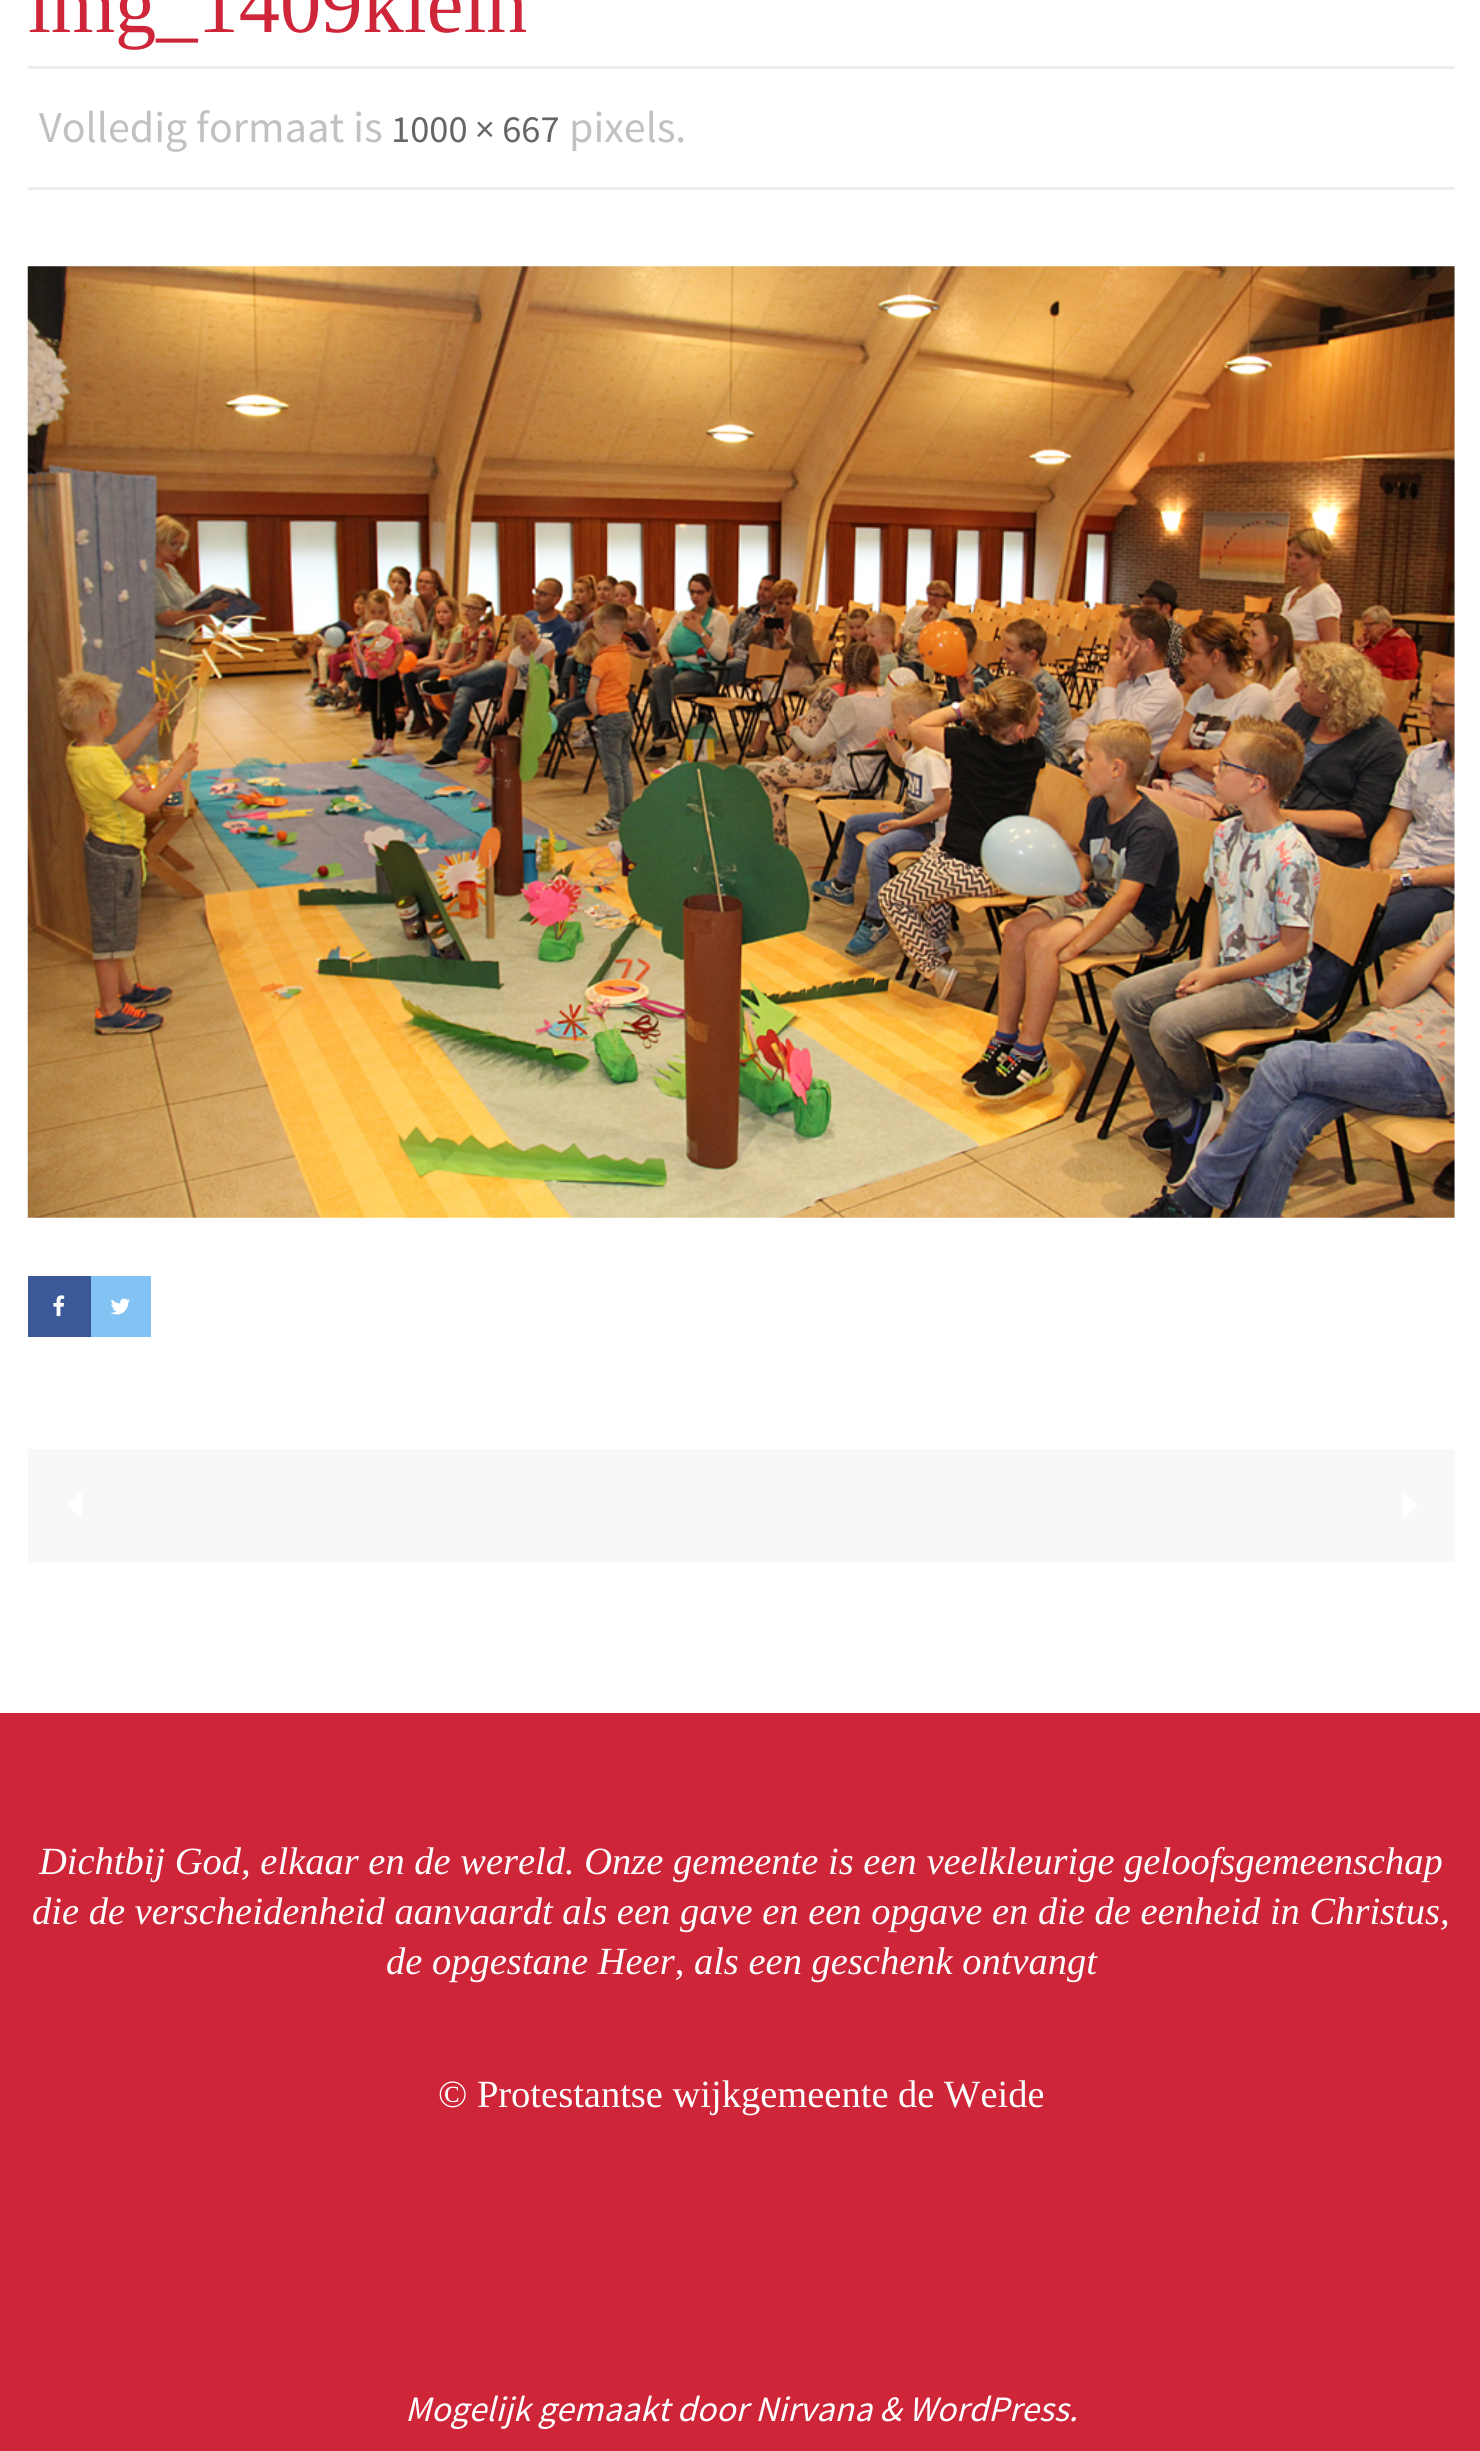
#include <cairo.h>
#include <math.h>
#include <stddef.h>

static cairo_t *ctx;

static void use_color(int r, int g, int b) {
    cairo_set_source_rgb(ctx, r / 255.0, g / 255.0, b / 255.0);
}

static void picture(const char *path, double x, double y, double w, double h) {
    cairo_surface_t *image = cairo_image_surface_create_from_png(path);
    cairo_save(ctx);
    cairo_set_source_surface(ctx, image, x, y);
    cairo_rectangle(ctx, x, y, w, h);
    cairo_fill(ctx);
    cairo_restore(ctx);
    cairo_surface_destroy(image);
}

int main(void) {
    cairo_surface_t *surface = cairo_image_surface_create(CAIRO_FORMAT_RGB24, 1480, 2451);
    ctx = cairo_create(surface);
    cairo_font_options_t *options = cairo_font_options_create();
    cairo_font_options_set_hint_metrics(options, CAIRO_HINT_METRICS_OFF);
    cairo_font_options_set_hint_style(options, CAIRO_HINT_STYLE_NONE);
    cairo_set_font_options(ctx, options);
    cairo_set_miter_limit(ctx, 4);
    use_color(255, 255, 255);
    cairo_paint(ctx);
    cairo_select_font_face(ctx, "Liberation Serif", CAIRO_FONT_SLANT_NORMAL, CAIRO_FONT_WEIGHT_NORMAL);
    cairo_set_font_size(ctx, 82.5);
    use_color(206, 37, 56);
    cairo_move_to(ctx, 28, 32);
    cairo_show_text(ctx, "img_1409klein");
    use_color(238, 238, 238);
    cairo_rectangle(ctx, 28, 66, 1427, 3);
    cairo_fill(ctx);
    cairo_rectangle(ctx, 28, 187, 1427, 3);
    cairo_fill(ctx);
    cairo_select_font_face(ctx, "Source Sans Pro", CAIRO_FONT_SLANT_NORMAL, CAIRO_FONT_WEIGHT_NORMAL);
    cairo_set_font_size(ctx, 44);
    use_color(193, 193, 193);
    cairo_move_to(ctx, 39, 142);
    cairo_show_text(ctx, "Volledig formaat is");
    cairo_set_font_size(ctx, 38.5);
    use_color(102, 102, 102);
    cairo_move_to(ctx, 391, 142);
    cairo_show_text(ctx, "1000 × 667");
    cairo_set_font_size(ctx, 44);
    use_color(193, 193, 193);
    cairo_move_to(ctx, 569, 142);
    cairo_show_text(ctx, "pixels.");
    picture("img1.png", 27, 266, 1428, 952);
    use_color(59, 89, 152);
    cairo_rectangle(ctx, 28, 1276, 63, 61);
    cairo_fill(ctx);
    picture("img2.png", 53, 1295, 12, 22);
    use_color(131, 195, 243);
    cairo_rectangle(ctx, 91, 1276, 60, 61);
    cairo_fill(ctx);
    picture("img3.png", 110, 1298, 20, 17);
    use_color(248, 248, 248);
    cairo_rectangle(ctx, 28, 1449, 1427, 113);
    cairo_fill(ctx);
    picture("img4.png", 68, 1493, 14, 25);
    picture("img5.png", 1403, 1493, 14, 25);
    use_color(206, 37, 56);
    cairo_rectangle(ctx, 0, 1713, 1480, 738);
    cairo_fill(ctx);
    cairo_select_font_face(ctx, "Liberation Serif", CAIRO_FONT_SLANT_ITALIC, CAIRO_FONT_WEIGHT_NORMAL);
    cairo_set_font_size(ctx, 38.5);
    use_color(255, 255, 255);
    cairo_move_to(ctx, 39, 1874);
    cairo_show_text(ctx, "Dichtbij God, elkaar en de wereld. Onze gemeente is een veelkleurige geloofsgemeenschap");
    cairo_move_to(ctx, 32, 1924);
    cairo_show_text(ctx, "die de verscheidenheid aanvaardt als een gave en een opgave en die de eenheid in Christus,");
    cairo_move_to(ctx, 386, 1974);
    cairo_show_text(ctx, "de opgestane Heer, als een geschenk ontvangt");
    cairo_select_font_face(ctx, "Liberation Serif", CAIRO_FONT_SLANT_NORMAL, CAIRO_FONT_WEIGHT_NORMAL);
    cairo_move_to(ctx, 438, 2107);
    cairo_show_text(ctx, "© Protestantse wijkgemeente de Weide");
    cairo_select_font_face(ctx, "Source Sans Pro", CAIRO_FONT_SLANT_ITALIC, CAIRO_FONT_WEIGHT_NORMAL);
    cairo_set_font_size(ctx, 35.75);
    cairo_move_to(ctx, 405, 2421);
    cairo_show_text(ctx, "Mogelijk gemaakt door Nirvana & WordPress.");
    cairo_surface_write_to_png(surface, "result.png");
    cairo_font_options_destroy(options);
    cairo_destroy(ctx);
    cairo_surface_destroy(surface);
    return 0;
}
